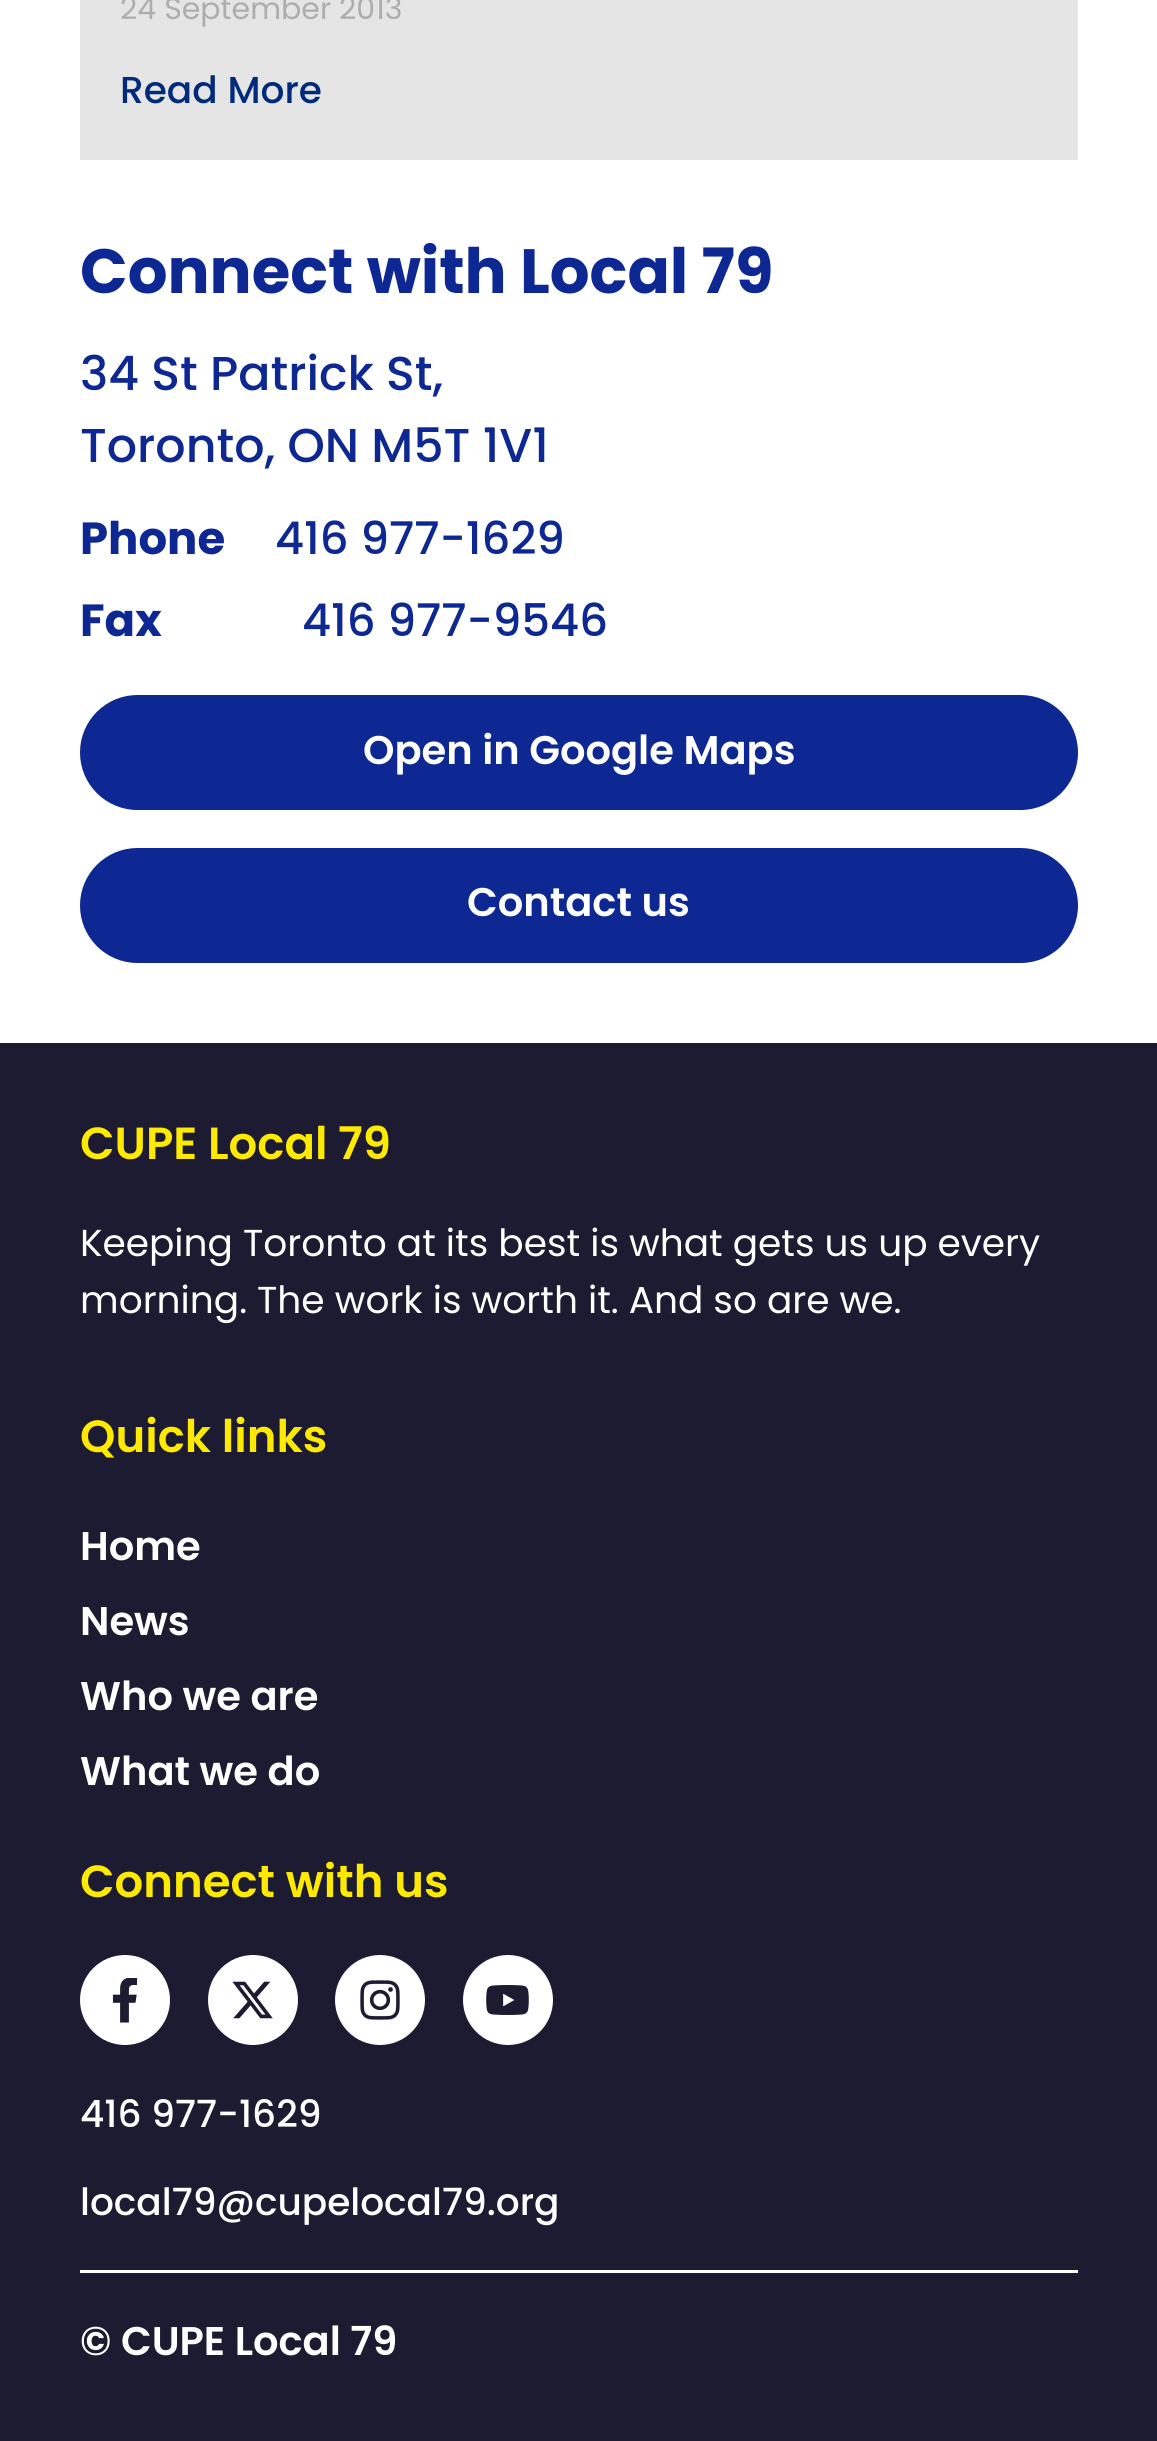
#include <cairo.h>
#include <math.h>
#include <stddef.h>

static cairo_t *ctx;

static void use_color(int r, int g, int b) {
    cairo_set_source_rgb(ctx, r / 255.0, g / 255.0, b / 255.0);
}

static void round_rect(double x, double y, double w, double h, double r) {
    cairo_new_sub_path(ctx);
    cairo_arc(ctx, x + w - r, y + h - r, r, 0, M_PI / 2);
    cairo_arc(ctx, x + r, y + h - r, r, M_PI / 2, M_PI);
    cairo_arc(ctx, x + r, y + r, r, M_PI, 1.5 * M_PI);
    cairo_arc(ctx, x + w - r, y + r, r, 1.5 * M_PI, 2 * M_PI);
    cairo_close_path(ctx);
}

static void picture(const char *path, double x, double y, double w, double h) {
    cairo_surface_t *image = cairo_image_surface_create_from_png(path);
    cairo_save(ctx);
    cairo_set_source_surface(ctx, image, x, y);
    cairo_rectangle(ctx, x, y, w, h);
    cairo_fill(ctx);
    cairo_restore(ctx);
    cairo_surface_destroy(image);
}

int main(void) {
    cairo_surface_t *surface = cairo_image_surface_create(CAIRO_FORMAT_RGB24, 1157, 2441);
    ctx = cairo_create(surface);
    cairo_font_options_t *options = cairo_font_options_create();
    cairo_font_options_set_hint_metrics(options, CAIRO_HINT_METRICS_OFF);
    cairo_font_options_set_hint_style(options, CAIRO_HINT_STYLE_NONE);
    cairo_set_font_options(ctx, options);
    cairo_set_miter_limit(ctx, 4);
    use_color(255, 255, 255);
    cairo_paint(ctx);
    use_color(229, 229, 229);
    cairo_rectangle(ctx, 80, 0, 998, 160);
    cairo_fill(ctx);
    cairo_select_font_face(ctx, "Poppins", CAIRO_FONT_SLANT_NORMAL, CAIRO_FONT_WEIGHT_NORMAL);
    cairo_set_font_size(ctx, 30);
    use_color(173, 173, 173);
    cairo_move_to(ctx, 120, 19);
    cairo_show_text(ctx, "24 September 2013");
    cairo_select_font_face(ctx, "Poppins Medium", CAIRO_FONT_SLANT_NORMAL, CAIRO_FONT_WEIGHT_NORMAL);
    cairo_set_font_size(ctx, 37.5);
    use_color(0, 43, 124);
    cairo_move_to(ctx, 120, 103);
    cairo_show_text(ctx, "Read More");
    cairo_select_font_face(ctx, "Poppins", CAIRO_FONT_SLANT_NORMAL, CAIRO_FONT_WEIGHT_BOLD);
    cairo_set_font_size(ctx, 62.5);
    use_color(13, 39, 147);
    cairo_move_to(ctx, 80, 293);
    cairo_show_text(ctx, "Connect with Local 79");
    cairo_select_font_face(ctx, "Poppins Medium", CAIRO_FONT_SLANT_NORMAL, CAIRO_FONT_WEIGHT_NORMAL);
    cairo_set_font_size(ctx, 47.5);
    cairo_move_to(ctx, 80, 390);
    cairo_show_text(ctx, "34 St Patrick St,");
    cairo_move_to(ctx, 80, 462);
    cairo_show_text(ctx, "Toronto, ON M5T 1V1");
    cairo_select_font_face(ctx, "Poppins", CAIRO_FONT_SLANT_NORMAL, CAIRO_FONT_WEIGHT_BOLD);
    cairo_set_font_size(ctx, 45);
    cairo_move_to(ctx, 80, 554);
    cairo_show_text(ctx, "Phone");
    cairo_select_font_face(ctx, "Poppins Medium", CAIRO_FONT_SLANT_NORMAL, CAIRO_FONT_WEIGHT_NORMAL);
    cairo_move_to(ctx, 275, 554);
    cairo_show_text(ctx, "416 977-1629");
    cairo_select_font_face(ctx, "Poppins", CAIRO_FONT_SLANT_NORMAL, CAIRO_FONT_WEIGHT_BOLD);
    cairo_move_to(ctx, 80, 636);
    cairo_show_text(ctx, "Fax");
    cairo_select_font_face(ctx, "Poppins Medium", CAIRO_FONT_SLANT_NORMAL, CAIRO_FONT_WEIGHT_NORMAL);
    cairo_move_to(ctx, 302, 636);
    cairo_show_text(ctx, "416 977-9546");
    round_rect(80, 695, 998, 115, 57.5);
    cairo_fill(ctx);
    cairo_select_font_face(ctx, "Poppins SemiBold", CAIRO_FONT_SLANT_NORMAL, CAIRO_FONT_WEIGHT_NORMAL);
    cairo_set_font_size(ctx, 40);
    use_color(255, 255, 255);
    cairo_move_to(ctx, 363, 764);
    cairo_show_text(ctx, "Open in Google Maps");
    use_color(13, 39, 147);
    round_rect(80, 848, 998, 115, 57.5);
    cairo_fill(ctx);
    use_color(255, 255, 255);
    cairo_move_to(ctx, 467, 916);
    cairo_show_text(ctx, "Contact us");
    use_color(29, 27, 49);
    cairo_rectangle(ctx, 0, 1043, 1157, 1398);
    cairo_fill(ctx);
    cairo_set_font_size(ctx, 45);
    use_color(254, 234, 1);
    cairo_move_to(ctx, 80, 1159);
    cairo_show_text(ctx, "CUPE Local 79");
    cairo_select_font_face(ctx, "Poppins", CAIRO_FONT_SLANT_NORMAL, CAIRO_FONT_WEIGHT_NORMAL);
    cairo_set_font_size(ctx, 37.5);
    use_color(255, 255, 255);
    cairo_move_to(ctx, 80, 1256);
    cairo_show_text(ctx, "Keeping Toronto at its best is what gets us up every");
    cairo_move_to(ctx, 80, 1313);
    cairo_show_text(ctx, "morning. The work is worth it. And so are we.");
    cairo_select_font_face(ctx, "Poppins SemiBold", CAIRO_FONT_SLANT_NORMAL, CAIRO_FONT_WEIGHT_NORMAL);
    cairo_set_font_size(ctx, 45);
    use_color(254, 234, 1);
    cairo_move_to(ctx, 80, 1452);
    cairo_show_text(ctx, "Quick links");
    cairo_set_font_size(ctx, 40);
    use_color(255, 255, 255);
    cairo_move_to(ctx, 80, 1560);
    cairo_show_text(ctx, "Home");
    cairo_move_to(ctx, 80, 1635);
    cairo_show_text(ctx, "News");
    cairo_move_to(ctx, 80, 1710);
    cairo_show_text(ctx, "Who we are");
    cairo_move_to(ctx, 80, 1785);
    cairo_show_text(ctx, "What we do");
    cairo_set_font_size(ctx, 45);
    use_color(254, 234, 1);
    cairo_move_to(ctx, 80, 1897);
    cairo_show_text(ctx, "Connect with us");
    use_color(255, 255, 255);
    cairo_new_path(ctx);
    cairo_arc(ctx, 125, 2000, 45, 0, 2 * M_PI);
    cairo_fill(ctx);
    picture("img1.png", 112, 1978, 26, 45);
    cairo_arc(ctx, 253, 2000, 45, 0, 2 * M_PI);
    cairo_fill(ctx);
    picture("img2.png", 232, 1981, 41, 38);
    cairo_arc(ctx, 380, 2000, 45, 0, 2 * M_PI);
    cairo_fill(ctx);
    picture("img3.png", 360, 1980, 40, 40);
    cairo_arc(ctx, 508, 2000, 45, 0, 2 * M_PI);
    cairo_fill(ctx);
    picture("img4.png", 486, 1985, 43, 30);
    cairo_select_font_face(ctx, "Poppins Medium", CAIRO_FONT_SLANT_NORMAL, CAIRO_FONT_WEIGHT_NORMAL);
    cairo_set_font_size(ctx, 37.5);
    cairo_move_to(ctx, 80, 2127);
    cairo_show_text(ctx, "416 977-1629");
    cairo_move_to(ctx, 80, 2215);
    cairo_show_text(ctx, "local79@cupelocal79.org");
    cairo_rectangle(ctx, 80, 2270, 998, 3);
    cairo_fill(ctx);
    cairo_select_font_face(ctx, "Poppins SemiBold", CAIRO_FONT_SLANT_NORMAL, CAIRO_FONT_WEIGHT_NORMAL);
    cairo_set_font_size(ctx, 40);
    cairo_move_to(ctx, 80, 2355);
    cairo_show_text(ctx, "© CUPE Local 79");
    cairo_surface_write_to_png(surface, "result.png");
    cairo_font_options_destroy(options);
    cairo_destroy(ctx);
    cairo_surface_destroy(surface);
    return 0;
}
